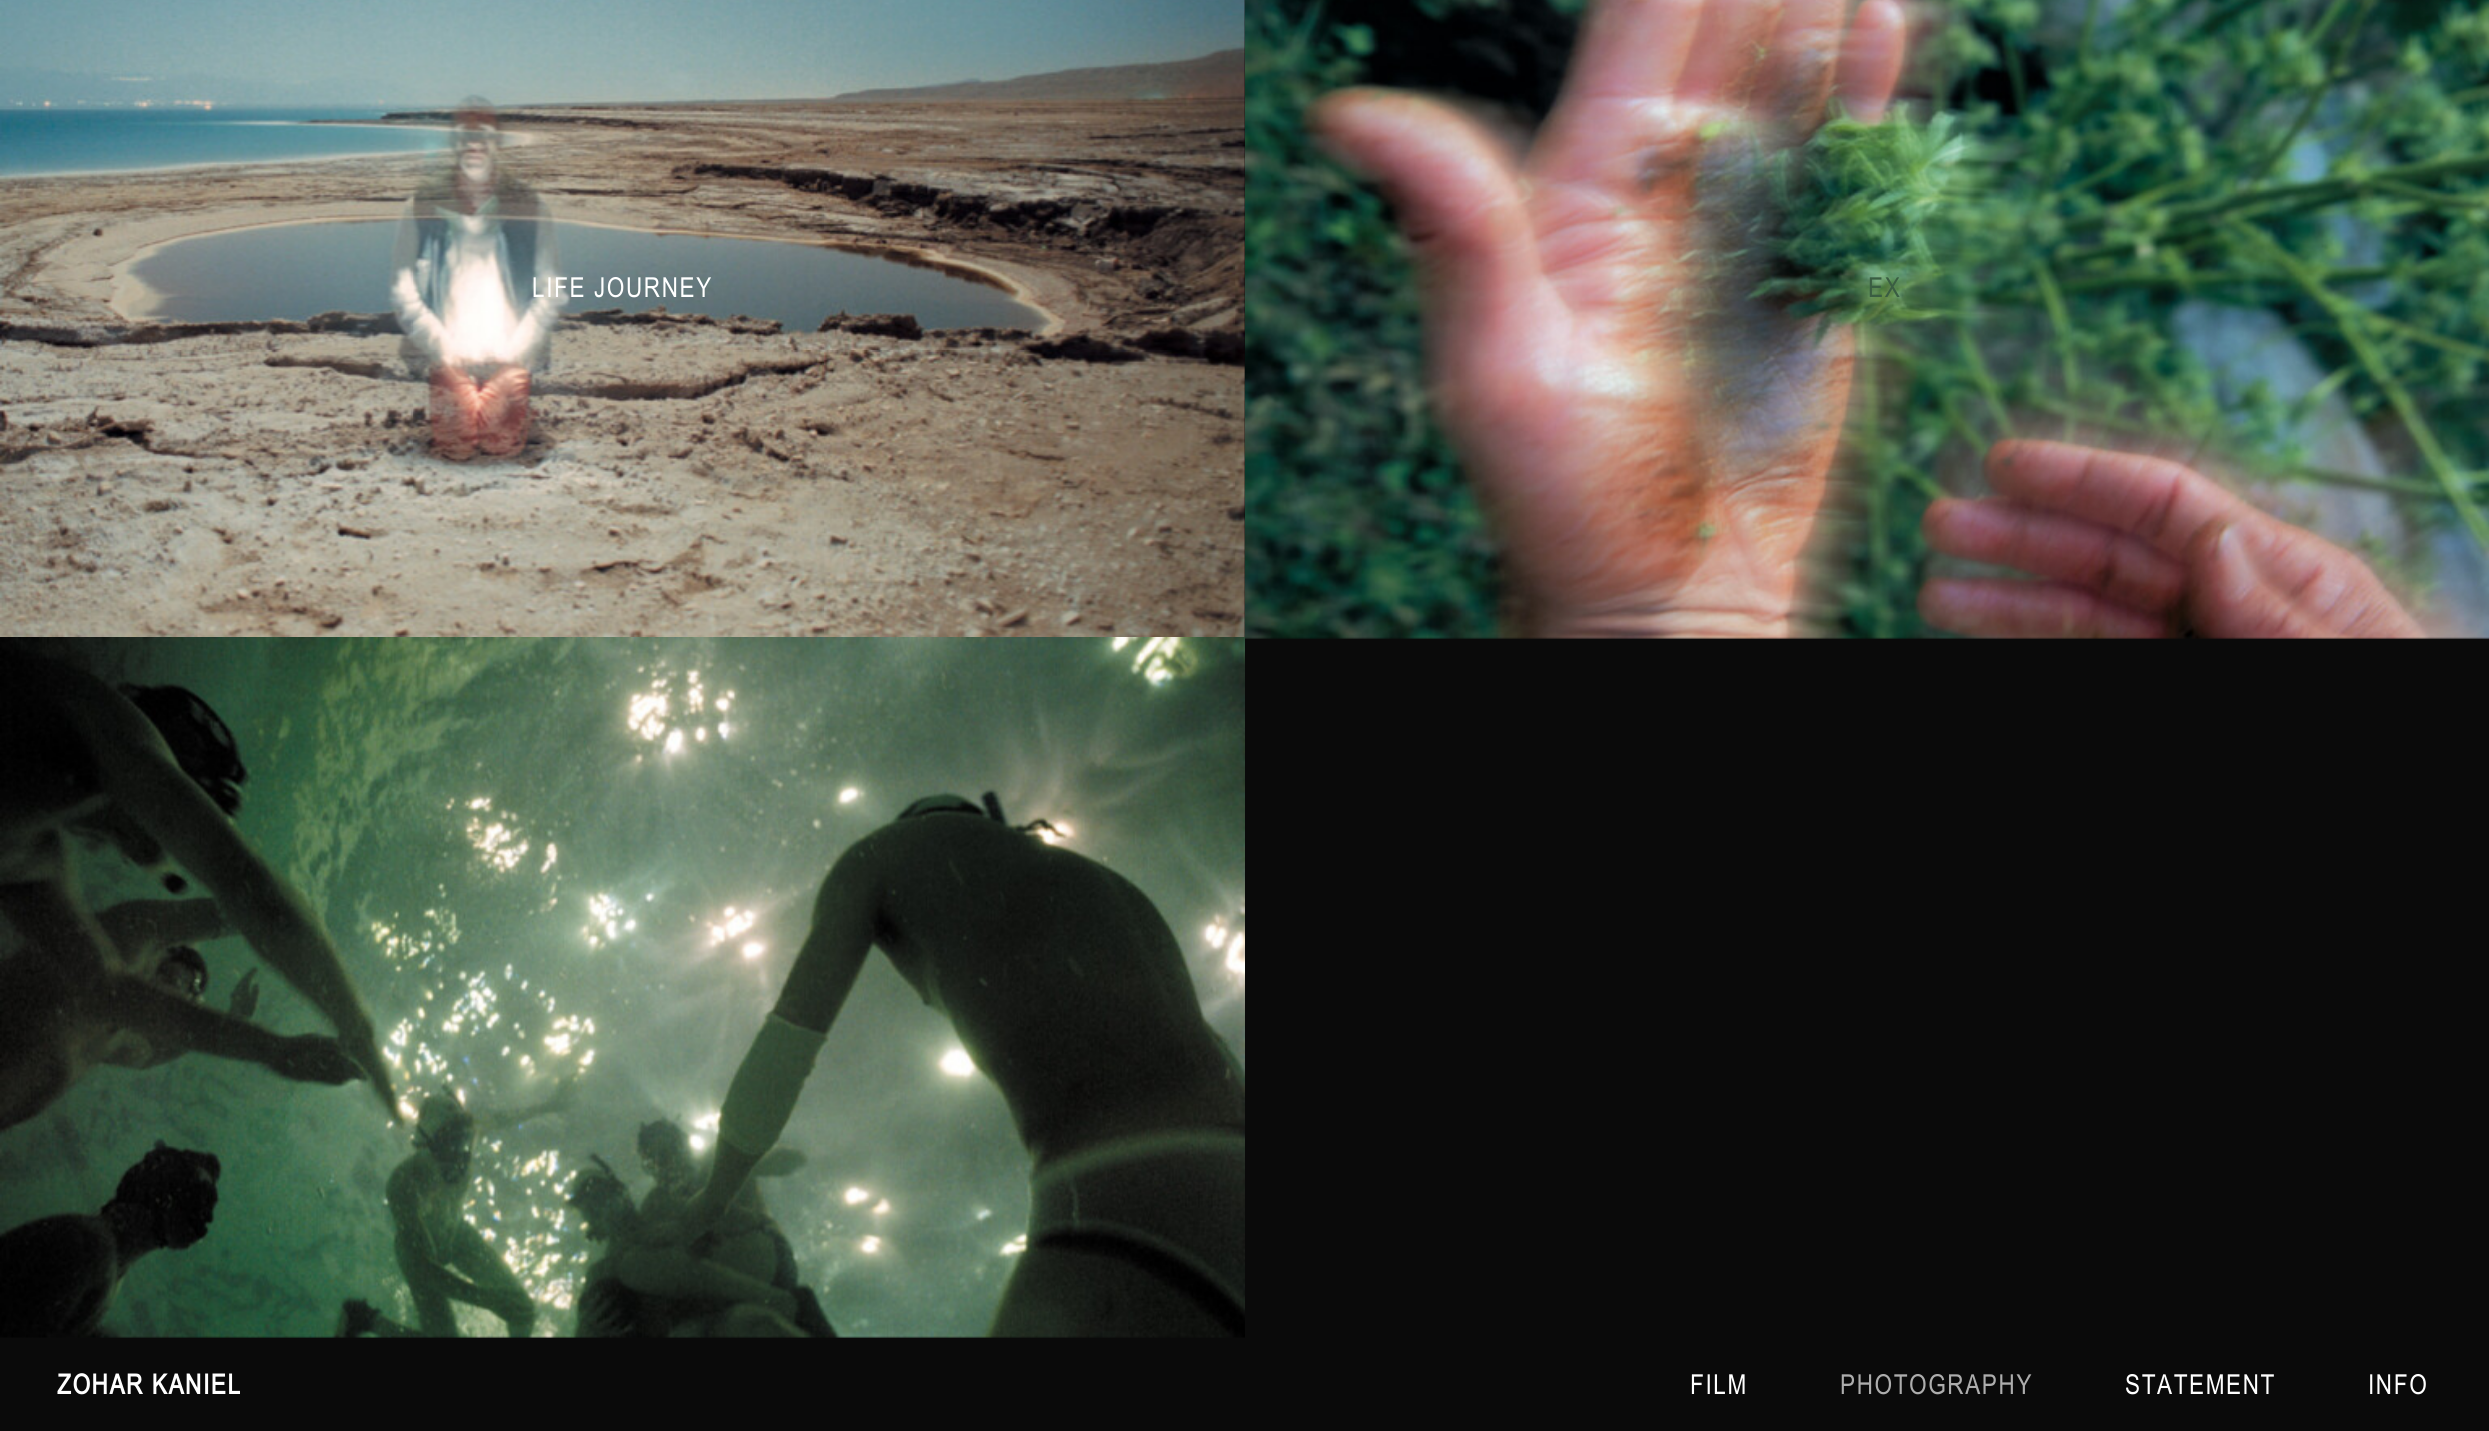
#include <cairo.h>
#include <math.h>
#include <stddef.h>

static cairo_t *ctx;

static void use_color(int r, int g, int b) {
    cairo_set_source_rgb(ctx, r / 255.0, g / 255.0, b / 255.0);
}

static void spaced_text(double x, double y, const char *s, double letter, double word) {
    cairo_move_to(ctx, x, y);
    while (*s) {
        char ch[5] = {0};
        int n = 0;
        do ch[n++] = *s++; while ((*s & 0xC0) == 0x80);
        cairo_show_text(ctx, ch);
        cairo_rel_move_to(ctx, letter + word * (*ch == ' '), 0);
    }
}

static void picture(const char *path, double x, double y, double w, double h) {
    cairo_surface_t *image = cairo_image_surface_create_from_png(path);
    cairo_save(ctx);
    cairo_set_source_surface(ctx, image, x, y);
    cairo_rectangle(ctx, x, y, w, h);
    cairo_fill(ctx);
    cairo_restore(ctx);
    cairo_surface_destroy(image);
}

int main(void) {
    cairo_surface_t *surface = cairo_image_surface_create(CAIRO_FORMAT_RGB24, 2489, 1431);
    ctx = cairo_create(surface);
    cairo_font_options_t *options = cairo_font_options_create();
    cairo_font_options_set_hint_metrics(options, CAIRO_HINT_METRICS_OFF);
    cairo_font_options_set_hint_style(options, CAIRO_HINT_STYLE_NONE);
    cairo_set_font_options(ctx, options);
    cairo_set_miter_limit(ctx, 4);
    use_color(10, 10, 10);
    cairo_paint(ctx);
    picture("img1.png", 0, 0, 1245, 637);
    cairo_select_font_face(ctx, "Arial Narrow", CAIRO_FONT_SLANT_NORMAL, CAIRO_FONT_WEIGHT_NORMAL);
    cairo_set_font_size(ctx, 27.5);
    use_color(255, 255, 255);
    spaced_text(532, 297, "LIFE JOURNEY", 1.6, 0);
    picture("img2.png", 1245, 0, 1244, 639);
    use_color(58, 93, 66);
    spaced_text(1868, 297, "EX", 1.6, 0);
    picture("img3.png", 0, 637, 1245, 701);
    cairo_select_font_face(ctx, "Arial Narrow", CAIRO_FONT_SLANT_NORMAL, CAIRO_FONT_WEIGHT_BOLD);
    use_color(255, 255, 255);
    spaced_text(57, 1394, "ZOHAR KANIEL", 1.6, 0);
    cairo_select_font_face(ctx, "Arial Narrow", CAIRO_FONT_SLANT_NORMAL, CAIRO_FONT_WEIGHT_NORMAL);
    spaced_text(1690, 1394, "FILM", 1.6, 0);
    use_color(173, 173, 173);
    spaced_text(1840, 1394, "PHOTOGRAPHY", 1.6, 0);
    use_color(255, 255, 255);
    spaced_text(2125, 1394, "STATEMENT", 1.6, 0);
    spaced_text(2368, 1394, "INFO", 1.6, 0);
    cairo_surface_write_to_png(surface, "result.png");
    cairo_font_options_destroy(options);
    cairo_destroy(ctx);
    cairo_surface_destroy(surface);
    return 0;
}
